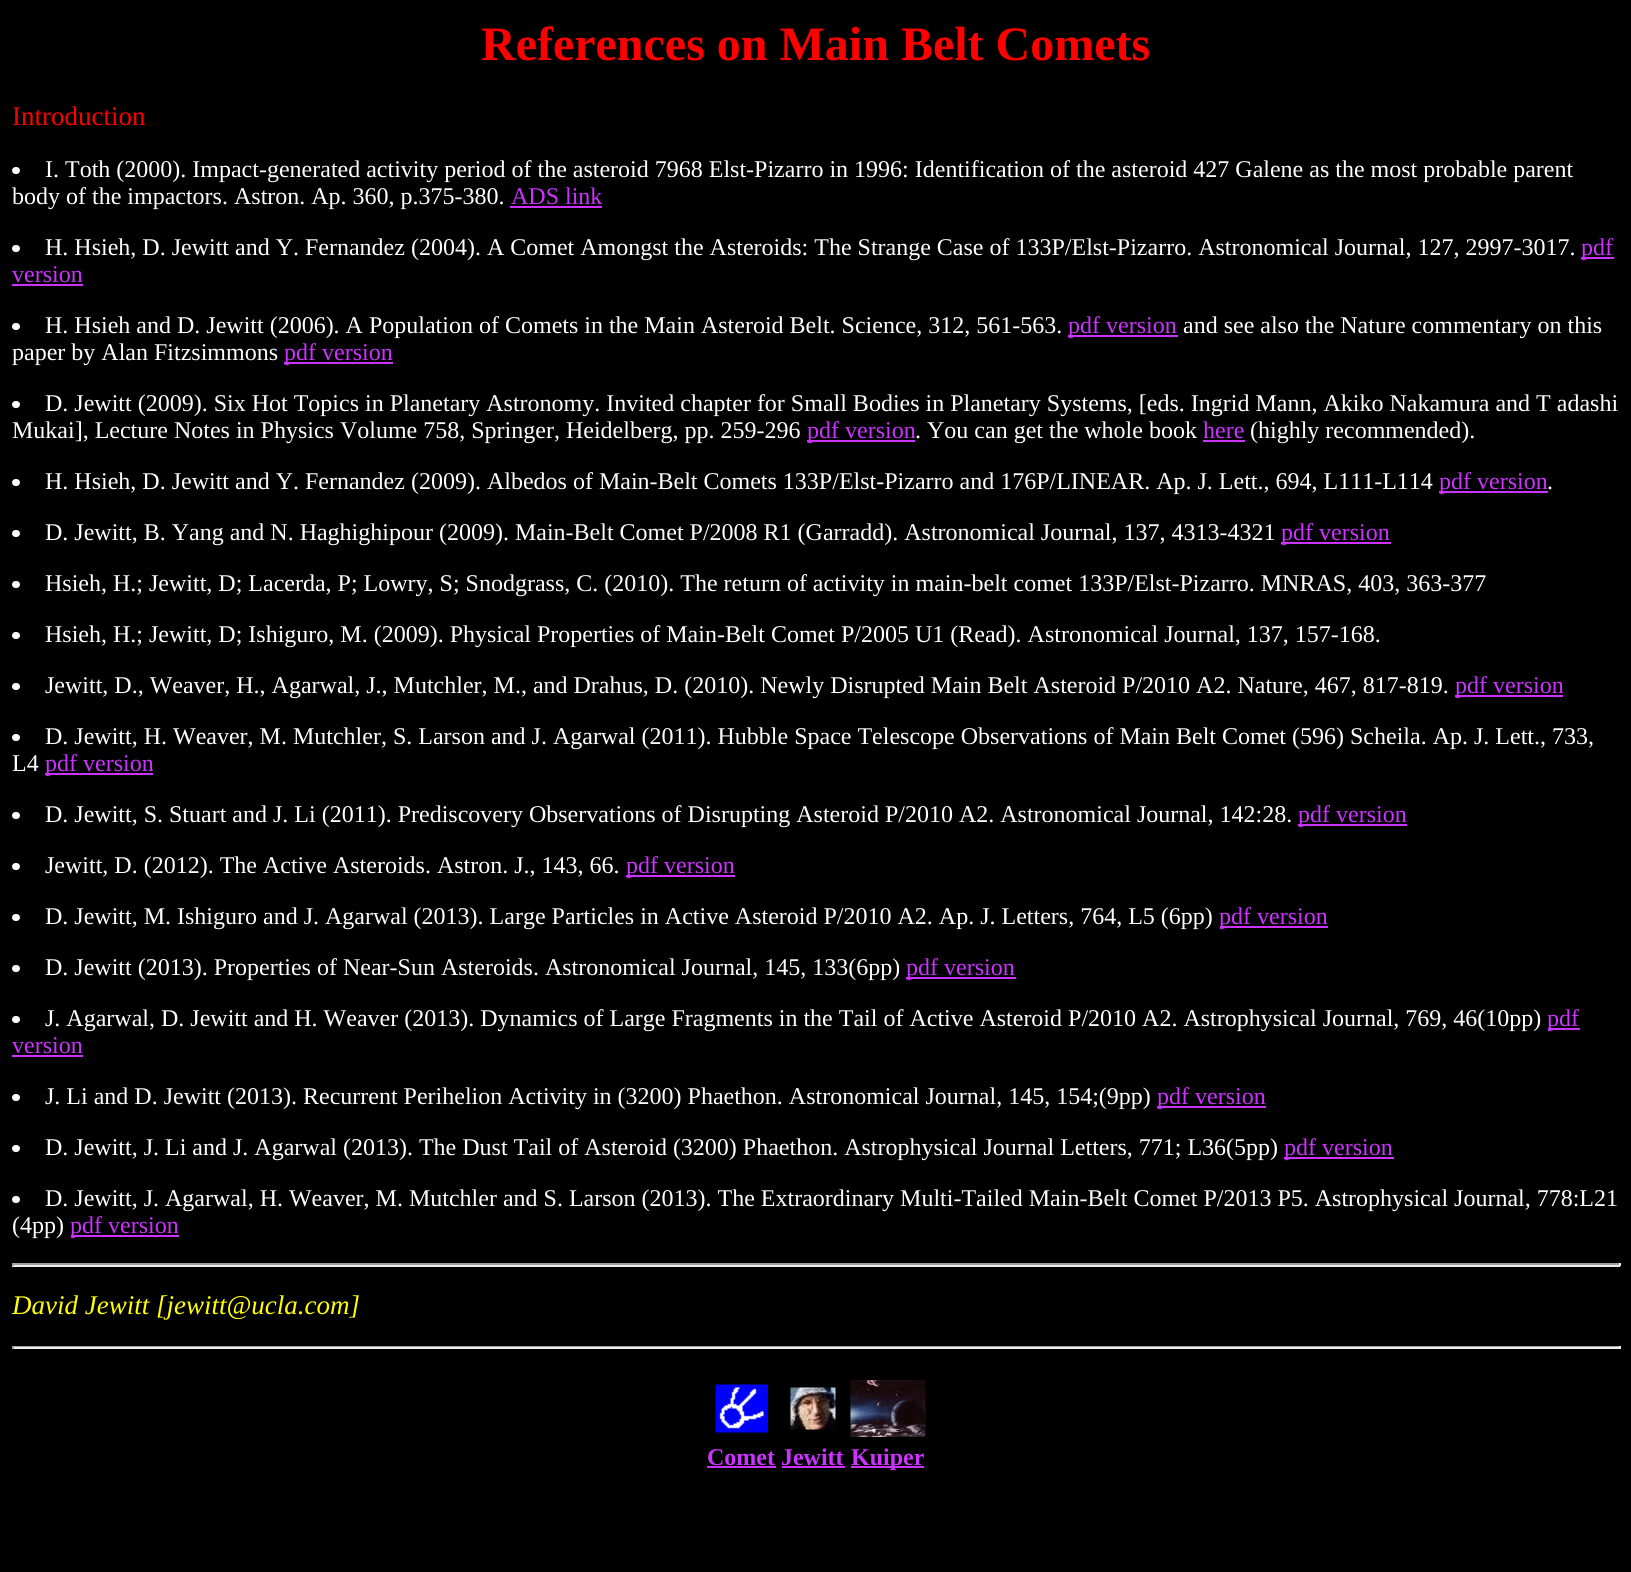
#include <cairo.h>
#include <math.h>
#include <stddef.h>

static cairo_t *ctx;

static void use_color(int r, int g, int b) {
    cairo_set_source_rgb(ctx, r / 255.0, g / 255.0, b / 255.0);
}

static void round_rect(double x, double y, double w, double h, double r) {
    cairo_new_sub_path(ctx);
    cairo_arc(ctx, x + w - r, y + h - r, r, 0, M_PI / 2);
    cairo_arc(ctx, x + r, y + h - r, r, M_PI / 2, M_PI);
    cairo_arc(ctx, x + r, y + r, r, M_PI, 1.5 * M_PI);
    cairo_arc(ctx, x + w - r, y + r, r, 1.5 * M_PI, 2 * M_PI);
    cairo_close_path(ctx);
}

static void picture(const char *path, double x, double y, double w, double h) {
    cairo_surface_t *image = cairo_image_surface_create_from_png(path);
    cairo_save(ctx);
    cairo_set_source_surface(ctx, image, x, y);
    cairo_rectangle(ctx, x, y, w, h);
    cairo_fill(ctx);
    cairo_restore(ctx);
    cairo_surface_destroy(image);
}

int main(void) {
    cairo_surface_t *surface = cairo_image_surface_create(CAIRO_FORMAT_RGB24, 1631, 1572);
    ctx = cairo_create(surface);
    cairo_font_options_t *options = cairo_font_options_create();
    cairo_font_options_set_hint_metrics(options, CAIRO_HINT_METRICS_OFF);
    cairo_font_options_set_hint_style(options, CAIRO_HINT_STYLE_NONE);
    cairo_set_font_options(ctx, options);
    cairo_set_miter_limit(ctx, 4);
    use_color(0, 0, 0);
    cairo_paint(ctx);
    cairo_select_font_face(ctx, "Liberation Serif", CAIRO_FONT_SLANT_NORMAL, CAIRO_FONT_WEIGHT_BOLD);
    cairo_set_font_size(ctx, 48);
    use_color(255, 0, 0);
    cairo_move_to(ctx, 481, 60);
    cairo_show_text(ctx, "References on Main Belt Comets");
    cairo_select_font_face(ctx, "Liberation Serif", CAIRO_FONT_SLANT_NORMAL, CAIRO_FONT_WEIGHT_NORMAL);
    cairo_set_font_size(ctx, 27);
    cairo_move_to(ctx, 12, 125);
    cairo_show_text(ctx, "Introduction");
    use_color(255, 255, 255);
    round_rect(12, 167, 8, 7, 3.5);
    cairo_fill(ctx);
    cairo_set_font_size(ctx, 24);
    cairo_move_to(ctx, 45, 177);
    cairo_show_text(ctx, "I. Toth (2000). Impact-generated activity period of the asteroid 7968 Elst-Pizarro in 1996: Identification of the asteroid 427 Galene as the most probable parent");
    cairo_move_to(ctx, 12, 204);
    cairo_show_text(ctx, "body of the impactors. Astron. Ap. 360, p.375-380.");
    use_color(204, 51, 255);
    cairo_move_to(ctx, 511, 204);
    cairo_show_text(ctx, "ADS link");
    cairo_rectangle(ctx, 510, 206, 92, 2);
    cairo_fill(ctx);
    use_color(255, 255, 255);
    round_rect(12, 245, 8, 7, 3.5);
    cairo_fill(ctx);
    cairo_move_to(ctx, 45, 255);
    cairo_show_text(ctx, "H. Hsieh, D. Jewitt and Y. Fernandez (2004). A Comet Amongst the Asteroids: The Strange Case of 133P/Elst-Pizarro. Astronomical Journal, 127, 2997-3017.");
    use_color(204, 51, 255);
    cairo_rectangle(ctx, 1581, 257, 33, 2);
    cairo_fill(ctx);
    cairo_move_to(ctx, 1581, 255);
    cairo_show_text(ctx, "pdf");
    cairo_move_to(ctx, 12, 282);
    cairo_show_text(ctx, "version");
    cairo_rectangle(ctx, 12, 284, 71, 2);
    cairo_fill(ctx);
    use_color(255, 255, 255);
    round_rect(12, 323, 8, 7, 3.5);
    cairo_fill(ctx);
    cairo_move_to(ctx, 45, 333);
    cairo_show_text(ctx, "H. Hsieh and D. Jewitt (2006). A Population of Comets in the Main Asteroid Belt. Science, 312, 561-563.");
    use_color(204, 51, 255);
    cairo_rectangle(ctx, 1068, 335, 110, 2);
    cairo_fill(ctx);
    cairo_move_to(ctx, 1068, 333);
    cairo_show_text(ctx, "pdf version");
    use_color(255, 255, 255);
    cairo_move_to(ctx, 1183, 333);
    cairo_show_text(ctx, "and see also the Nature commentary on this");
    cairo_move_to(ctx, 12, 360);
    cairo_show_text(ctx, "paper by Alan Fitzsimmons");
    use_color(204, 51, 255);
    cairo_rectangle(ctx, 284, 362, 109, 2);
    cairo_fill(ctx);
    cairo_move_to(ctx, 284, 360);
    cairo_show_text(ctx, "pdf version");
    use_color(255, 255, 255);
    round_rect(12, 401, 8, 7, 3.5);
    cairo_fill(ctx);
    cairo_move_to(ctx, 45, 411);
    cairo_show_text(ctx, "D. Jewitt (2009). Six Hot Topics in Planetary Astronomy. Invited chapter for Small Bodies in Planetary Systems, [eds. Ingrid Mann, Akiko Nakamura and T adashi");
    cairo_move_to(ctx, 12, 438);
    cairo_show_text(ctx, "Mukai], Lecture Notes in Physics Volume 758, Springer, Heidelberg, pp. 259-296");
    use_color(204, 51, 255);
    cairo_rectangle(ctx, 807, 440, 108, 2);
    cairo_fill(ctx);
    cairo_move_to(ctx, 807, 438);
    cairo_show_text(ctx, "pdf version");
    use_color(255, 255, 255);
    cairo_move_to(ctx, 915, 438);
    cairo_show_text(ctx, ". You can get the whole book");
    use_color(204, 51, 255);
    cairo_move_to(ctx, 1203, 438);
    cairo_show_text(ctx, "here");
    cairo_rectangle(ctx, 1203, 440, 42, 2);
    cairo_fill(ctx);
    use_color(255, 255, 255);
    cairo_move_to(ctx, 1250, 438);
    cairo_show_text(ctx, "(highly recommended).");
    round_rect(12, 479, 8, 7, 3.5);
    cairo_fill(ctx);
    cairo_move_to(ctx, 45, 489);
    cairo_show_text(ctx, "H. Hsieh, D. Jewitt and Y. Fernandez (2009). Albedos of Main-Belt Comets 133P/Elst-Pizarro and 176P/LINEAR. Ap. J. Lett., 694, L111-L114");
    use_color(204, 51, 255);
    cairo_rectangle(ctx, 1439, 491, 109, 2);
    cairo_fill(ctx);
    cairo_move_to(ctx, 1439, 489);
    cairo_show_text(ctx, "pdf version");
    use_color(255, 255, 255);
    cairo_move_to(ctx, 1547, 489);
    cairo_show_text(ctx, ".");
    round_rect(12, 530, 8, 7, 3.5);
    cairo_fill(ctx);
    cairo_move_to(ctx, 45, 540);
    cairo_show_text(ctx, "D. Jewitt, B. Yang and N. Haghighipour (2009). Main-Belt Comet P/2008 R1 (Garradd). Astronomical Journal, 137, 4313-4321");
    use_color(204, 51, 255);
    cairo_rectangle(ctx, 1281, 542, 110, 2);
    cairo_fill(ctx);
    cairo_move_to(ctx, 1281, 540);
    cairo_show_text(ctx, "pdf version");
    use_color(255, 255, 255);
    round_rect(12, 581, 8, 7, 3.5);
    cairo_fill(ctx);
    cairo_move_to(ctx, 45, 591);
    cairo_show_text(ctx, "Hsieh, H.; Jewitt, D; Lacerda, P; Lowry, S; Snodgrass, C. (2010). The return of activity in main-belt comet 133P/Elst-Pizarro. MNRAS, 403, 363-377");
    round_rect(12, 632, 8, 7, 3.5);
    cairo_fill(ctx);
    cairo_move_to(ctx, 45, 642);
    cairo_show_text(ctx, "Hsieh, H.; Jewitt, D; Ishiguro, M. (2009). Physical Properties of Main-Belt Comet P/2005 U1 (Read). Astronomical Journal, 137, 157-168.");
    round_rect(12, 683, 8, 7, 3.5);
    cairo_fill(ctx);
    cairo_move_to(ctx, 45, 693);
    cairo_show_text(ctx, "Jewitt, D., Weaver, H., Agarwal, J., Mutchler, M., and Drahus, D. (2010). Newly Disrupted Main Belt Asteroid P/2010 A2. Nature, 467, 817-819.");
    use_color(204, 51, 255);
    cairo_rectangle(ctx, 1455, 695, 108, 2);
    cairo_fill(ctx);
    cairo_move_to(ctx, 1455, 693);
    cairo_show_text(ctx, "pdf version");
    use_color(255, 255, 255);
    round_rect(12, 734, 8, 7, 3.5);
    cairo_fill(ctx);
    cairo_move_to(ctx, 45, 744);
    cairo_show_text(ctx, "D. Jewitt, H. Weaver, M. Mutchler, S. Larson and J. Agarwal (2011). Hubble Space Telescope Observations of Main Belt Comet (596) Scheila. Ap. J. Lett., 733,");
    cairo_move_to(ctx, 12, 771);
    cairo_show_text(ctx, "L4");
    use_color(204, 51, 255);
    cairo_rectangle(ctx, 45, 773, 108, 2);
    cairo_fill(ctx);
    cairo_move_to(ctx, 45, 771);
    cairo_show_text(ctx, "pdf version");
    use_color(255, 255, 255);
    round_rect(12, 812, 8, 7, 3.5);
    cairo_fill(ctx);
    cairo_move_to(ctx, 45, 822);
    cairo_show_text(ctx, "D. Jewitt, S. Stuart and J. Li (2011). Prediscovery Observations of Disrupting Asteroid P/2010 A2. Astronomical Journal, 142:28.");
    use_color(204, 51, 255);
    cairo_rectangle(ctx, 1298, 824, 109, 2);
    cairo_fill(ctx);
    cairo_move_to(ctx, 1298, 822);
    cairo_show_text(ctx, "pdf version");
    use_color(255, 255, 255);
    round_rect(12, 863, 8, 7, 3.5);
    cairo_fill(ctx);
    cairo_move_to(ctx, 45, 873);
    cairo_show_text(ctx, "Jewitt, D. (2012). The Active Asteroids. Astron. J., 143, 66.");
    use_color(204, 51, 255);
    cairo_rectangle(ctx, 626, 875, 109, 2);
    cairo_fill(ctx);
    cairo_move_to(ctx, 626, 873);
    cairo_show_text(ctx, "pdf version");
    use_color(255, 255, 255);
    round_rect(12, 914, 8, 7, 3.5);
    cairo_fill(ctx);
    cairo_move_to(ctx, 45, 924);
    cairo_show_text(ctx, "D. Jewitt, M. Ishiguro and J. Agarwal (2013). Large Particles in Active Asteroid P/2010 A2. Ap. J. Letters, 764, L5 (6pp)");
    use_color(204, 51, 255);
    cairo_rectangle(ctx, 1220, 926, 108, 2);
    cairo_fill(ctx);
    cairo_move_to(ctx, 1219, 924);
    cairo_show_text(ctx, "pdf version");
    use_color(255, 255, 255);
    round_rect(12, 965, 8, 7, 3.5);
    cairo_fill(ctx);
    cairo_move_to(ctx, 45, 975);
    cairo_show_text(ctx, "D. Jewitt (2013). Properties of Near-Sun Asteroids. Astronomical Journal, 145, 133(6pp)");
    use_color(204, 51, 255);
    cairo_rectangle(ctx, 906, 977, 110, 2);
    cairo_fill(ctx);
    cairo_move_to(ctx, 906, 975);
    cairo_show_text(ctx, "pdf version");
    use_color(255, 255, 255);
    round_rect(12, 1016, 8, 7, 3.5);
    cairo_fill(ctx);
    cairo_move_to(ctx, 45, 1026);
    cairo_show_text(ctx, "J. Agarwal, D. Jewitt and H. Weaver (2013). Dynamics of Large Fragments in the Tail of Active Asteroid P/2010 A2. Astrophysical Journal, 769, 46(10pp)");
    use_color(204, 51, 255);
    cairo_rectangle(ctx, 1548, 1028, 32, 2);
    cairo_fill(ctx);
    cairo_move_to(ctx, 1547, 1026);
    cairo_show_text(ctx, "pdf");
    cairo_move_to(ctx, 12, 1053);
    cairo_show_text(ctx, "version");
    cairo_rectangle(ctx, 12, 1055, 71, 2);
    cairo_fill(ctx);
    use_color(255, 255, 255);
    round_rect(12, 1094, 8, 7, 3.5);
    cairo_fill(ctx);
    cairo_move_to(ctx, 45, 1104);
    cairo_show_text(ctx, "J. Li and D. Jewitt (2013). Recurrent Perihelion Activity in (3200) Phaethon. Astronomical Journal, 145, 154;(9pp)");
    use_color(204, 51, 255);
    cairo_rectangle(ctx, 1157, 1106, 109, 2);
    cairo_fill(ctx);
    cairo_move_to(ctx, 1157, 1104);
    cairo_show_text(ctx, "pdf version");
    use_color(255, 255, 255);
    round_rect(12, 1145, 8, 7, 3.5);
    cairo_fill(ctx);
    cairo_move_to(ctx, 45, 1155);
    cairo_show_text(ctx, "D. Jewitt, J. Li and J. Agarwal (2013). The Dust Tail of Asteroid (3200) Phaethon. Astrophysical Journal Letters, 771; L36(5pp)");
    use_color(204, 51, 255);
    cairo_rectangle(ctx, 1284, 1157, 110, 2);
    cairo_fill(ctx);
    cairo_move_to(ctx, 1284, 1155);
    cairo_show_text(ctx, "pdf version");
    use_color(255, 255, 255);
    round_rect(12, 1196, 8, 7, 3.5);
    cairo_fill(ctx);
    cairo_move_to(ctx, 45, 1206);
    cairo_show_text(ctx, "D. Jewitt, J. Agarwal, H. Weaver, M. Mutchler and S. Larson (2013). The Extraordinary Multi-Tailed Main-Belt Comet P/2013 P5. Astrophysical Journal, 778:L21");
    cairo_move_to(ctx, 12, 1233);
    cairo_show_text(ctx, "(4pp)");
    use_color(204, 51, 255);
    cairo_rectangle(ctx, 71, 1235, 108, 2);
    cairo_fill(ctx);
    cairo_move_to(ctx, 70, 1233);
    cairo_show_text(ctx, "pdf version");
    use_color(159, 159, 159);
    cairo_rectangle(ctx, 12, 1263, 1608, 2);
    cairo_fill(ctx);
    use_color(238, 238, 238);
    cairo_rectangle(ctx, 1619, 1263, 2, 3);
    cairo_fill(ctx);
    cairo_rectangle(ctx, 12, 1265, 1608, 2);
    cairo_fill(ctx);
    use_color(159, 159, 159);
    cairo_rectangle(ctx, 12, 1263, 2, 3);
    cairo_fill(ctx);
    cairo_select_font_face(ctx, "Liberation Serif", CAIRO_FONT_SLANT_ITALIC, CAIRO_FONT_WEIGHT_NORMAL);
    cairo_set_font_size(ctx, 27);
    use_color(255, 255, 0);
    cairo_move_to(ctx, 12, 1314);
    cairo_show_text(ctx, "David Jewitt [jewitt@ucla.com]");
    use_color(159, 159, 159);
    cairo_rectangle(ctx, 12, 1346, 1608, 1);
    cairo_fill(ctx);
    use_color(238, 238, 238);
    cairo_rectangle(ctx, 1619, 1346, 2, 3);
    cairo_fill(ctx);
    cairo_rectangle(ctx, 12, 1347, 1608, 2);
    cairo_fill(ctx);
    use_color(159, 159, 159);
    cairo_rectangle(ctx, 12, 1346, 2, 3);
    cairo_fill(ctx);
    picture("img1.png", 715, 1384, 53, 49);
    picture("img2.png", 790, 1387, 46, 43);
    picture("img3.png", 850, 1380, 76, 57);
    cairo_select_font_face(ctx, "Liberation Serif", CAIRO_FONT_SLANT_NORMAL, CAIRO_FONT_WEIGHT_BOLD);
    cairo_set_font_size(ctx, 24);
    use_color(204, 51, 255);
    cairo_move_to(ctx, 707, 1465);
    cairo_show_text(ctx, "Comet Jewitt");
    cairo_rectangle(ctx, 707, 1466, 69, 2);
    cairo_fill(ctx);
    cairo_rectangle(ctx, 851, 1466, 73, 2);
    cairo_fill(ctx);
    cairo_move_to(ctx, 851, 1465);
    cairo_show_text(ctx, "Kuiper");
    cairo_rectangle(ctx, 782, 1466, 63, 2);
    cairo_fill(ctx);
    cairo_surface_write_to_png(surface, "result.png");
    cairo_font_options_destroy(options);
    cairo_destroy(ctx);
    cairo_surface_destroy(surface);
    return 0;
}
